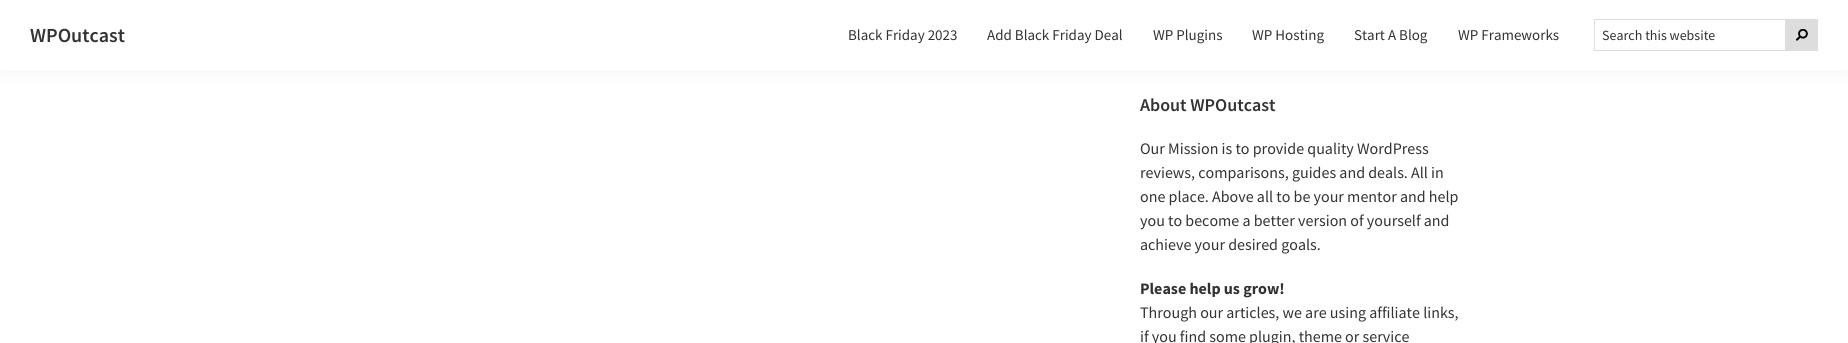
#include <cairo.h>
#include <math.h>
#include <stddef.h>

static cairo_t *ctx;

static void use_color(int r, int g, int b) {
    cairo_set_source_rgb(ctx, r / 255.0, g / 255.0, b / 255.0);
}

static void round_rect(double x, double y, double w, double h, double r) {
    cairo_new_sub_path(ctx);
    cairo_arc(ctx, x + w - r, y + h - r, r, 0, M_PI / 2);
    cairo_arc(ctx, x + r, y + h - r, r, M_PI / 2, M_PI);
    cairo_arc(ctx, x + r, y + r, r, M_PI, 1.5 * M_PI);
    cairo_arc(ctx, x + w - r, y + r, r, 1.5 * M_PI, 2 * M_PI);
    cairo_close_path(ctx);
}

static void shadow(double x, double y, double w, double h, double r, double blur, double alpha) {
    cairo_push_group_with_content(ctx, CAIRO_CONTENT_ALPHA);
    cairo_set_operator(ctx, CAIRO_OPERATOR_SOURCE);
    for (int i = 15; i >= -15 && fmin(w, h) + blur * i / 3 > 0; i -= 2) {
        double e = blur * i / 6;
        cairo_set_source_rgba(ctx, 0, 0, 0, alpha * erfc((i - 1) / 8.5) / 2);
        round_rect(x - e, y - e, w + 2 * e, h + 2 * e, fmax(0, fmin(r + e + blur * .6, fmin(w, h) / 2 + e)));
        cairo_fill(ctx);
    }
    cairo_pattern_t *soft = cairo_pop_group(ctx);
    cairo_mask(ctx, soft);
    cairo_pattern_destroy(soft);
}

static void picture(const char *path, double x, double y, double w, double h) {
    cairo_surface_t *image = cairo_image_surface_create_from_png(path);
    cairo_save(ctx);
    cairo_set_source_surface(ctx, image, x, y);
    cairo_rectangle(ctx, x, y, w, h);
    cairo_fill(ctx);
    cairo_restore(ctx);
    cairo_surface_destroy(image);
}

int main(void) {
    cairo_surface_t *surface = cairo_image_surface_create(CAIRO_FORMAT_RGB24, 1848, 343);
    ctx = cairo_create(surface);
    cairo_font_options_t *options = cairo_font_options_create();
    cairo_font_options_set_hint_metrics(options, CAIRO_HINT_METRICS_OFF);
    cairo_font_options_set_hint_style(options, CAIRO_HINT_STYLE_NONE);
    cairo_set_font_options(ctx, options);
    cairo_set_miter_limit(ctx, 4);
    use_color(255, 255, 255);
    cairo_paint(ctx);
    use_color(0, 0, 0);
    shadow(0, 0, 1848, 70, 0, 10, 0.05);
    use_color(255, 255, 255);
    cairo_rectangle(ctx, 0, 0, 1848, 70);
    cairo_fill(ctx);
    cairo_select_font_face(ctx, "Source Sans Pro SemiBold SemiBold", CAIRO_FONT_SLANT_NORMAL, CAIRO_FONT_WEIGHT_NORMAL);
    cairo_set_font_size(ctx, 20);
    use_color(51, 51, 51);
    cairo_move_to(ctx, 30, 42);
    cairo_show_text(ctx, "WPOutcast");
    cairo_select_font_face(ctx, "Source Sans Pro", CAIRO_FONT_SLANT_NORMAL, CAIRO_FONT_WEIGHT_NORMAL);
    cairo_set_font_size(ctx, 15);
    cairo_move_to(ctx, 848, 40);
    cairo_show_text(ctx, "Black Friday 2023");
    cairo_move_to(ctx, 987, 40);
    cairo_show_text(ctx, "Add Black Friday Deal");
    cairo_move_to(ctx, 1153, 40);
    cairo_show_text(ctx, "WP Plugins");
    cairo_move_to(ctx, 1252, 40);
    cairo_show_text(ctx, "WP Hosting");
    cairo_move_to(ctx, 1354, 40);
    cairo_show_text(ctx, "Start A Blog");
    cairo_move_to(ctx, 1458, 40);
    cairo_show_text(ctx, "WP Frameworks");
    cairo_rectangle(ctx, 1594.5, 19.5, 191, 31);
    use_color(221, 221, 221);
    cairo_set_line_width(ctx, 1);
    cairo_stroke(ctx);
    cairo_set_font_size(ctx, 14);
    use_color(51, 51, 51);
    cairo_move_to(ctx, 1602, 40);
    cairo_show_text(ctx, "Search this website");
    use_color(221, 221, 221);
    cairo_rectangle(ctx, 1786, 19, 32, 32);
    cairo_fill(ctx);
    picture("img1.png", 1796, 29, 12, 12);
    cairo_select_font_face(ctx, "Source Sans Pro SemiBold SemiBold", CAIRO_FONT_SLANT_NORMAL, CAIRO_FONT_WEIGHT_NORMAL);
    cairo_set_font_size(ctx, 18);
    use_color(51, 51, 51);
    cairo_move_to(ctx, 1140, 111);
    cairo_show_text(ctx, "About WPOutcast");
    cairo_select_font_face(ctx, "Source Sans Pro", CAIRO_FONT_SLANT_NORMAL, CAIRO_FONT_WEIGHT_NORMAL);
    cairo_set_font_size(ctx, 16);
    cairo_move_to(ctx, 1140, 154);
    cairo_show_text(ctx, "Our Mission is to provide quality WordPress");
    cairo_move_to(ctx, 1140, 178);
    cairo_show_text(ctx, "reviews, comparisons, guides and deals. All in");
    cairo_move_to(ctx, 1140, 202);
    cairo_show_text(ctx, "one place. Above all to be your mentor and help");
    cairo_move_to(ctx, 1140, 226);
    cairo_show_text(ctx, "you to become a better version of yourself and");
    cairo_move_to(ctx, 1140, 250);
    cairo_show_text(ctx, "achieve your desired goals.");
    cairo_select_font_face(ctx, "Source Sans Pro", CAIRO_FONT_SLANT_NORMAL, CAIRO_FONT_WEIGHT_BOLD);
    cairo_move_to(ctx, 1140, 294);
    cairo_show_text(ctx, "Please help us grow!");
    cairo_select_font_face(ctx, "Source Sans Pro", CAIRO_FONT_SLANT_NORMAL, CAIRO_FONT_WEIGHT_NORMAL);
    cairo_move_to(ctx, 1140, 318);
    cairo_show_text(ctx, "Through our articles, we are using affiliate links,");
    cairo_move_to(ctx, 1140, 342);
    cairo_show_text(ctx, "if you find some plugin, theme or service");
    cairo_surface_write_to_png(surface, "result.png");
    cairo_font_options_destroy(options);
    cairo_destroy(ctx);
    cairo_surface_destroy(surface);
    return 0;
}
